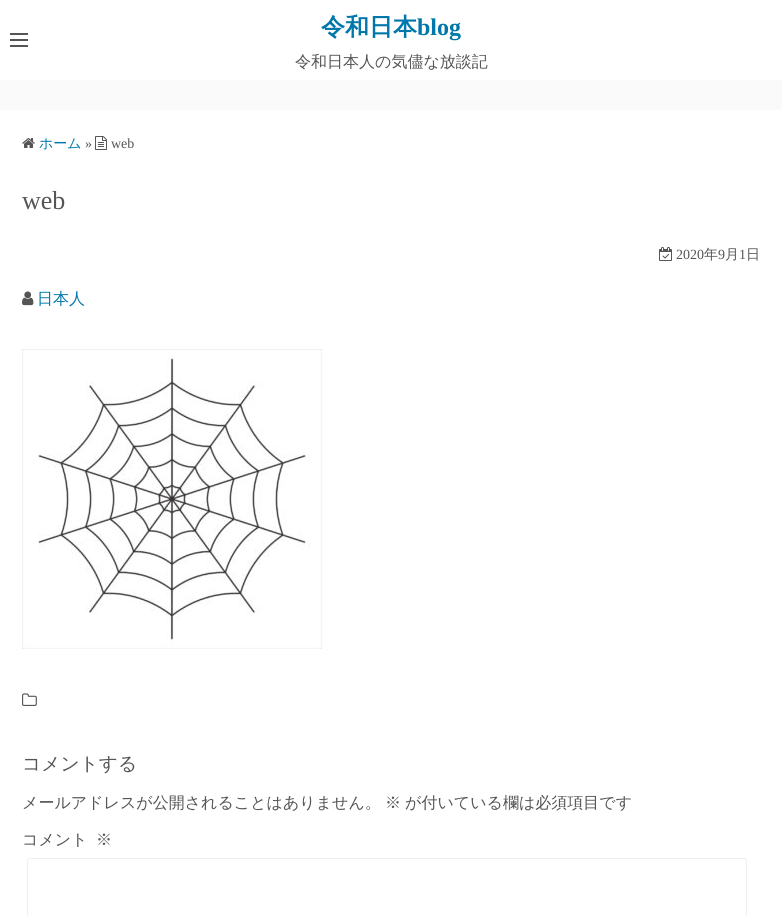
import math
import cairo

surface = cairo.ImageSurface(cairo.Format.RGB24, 782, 915)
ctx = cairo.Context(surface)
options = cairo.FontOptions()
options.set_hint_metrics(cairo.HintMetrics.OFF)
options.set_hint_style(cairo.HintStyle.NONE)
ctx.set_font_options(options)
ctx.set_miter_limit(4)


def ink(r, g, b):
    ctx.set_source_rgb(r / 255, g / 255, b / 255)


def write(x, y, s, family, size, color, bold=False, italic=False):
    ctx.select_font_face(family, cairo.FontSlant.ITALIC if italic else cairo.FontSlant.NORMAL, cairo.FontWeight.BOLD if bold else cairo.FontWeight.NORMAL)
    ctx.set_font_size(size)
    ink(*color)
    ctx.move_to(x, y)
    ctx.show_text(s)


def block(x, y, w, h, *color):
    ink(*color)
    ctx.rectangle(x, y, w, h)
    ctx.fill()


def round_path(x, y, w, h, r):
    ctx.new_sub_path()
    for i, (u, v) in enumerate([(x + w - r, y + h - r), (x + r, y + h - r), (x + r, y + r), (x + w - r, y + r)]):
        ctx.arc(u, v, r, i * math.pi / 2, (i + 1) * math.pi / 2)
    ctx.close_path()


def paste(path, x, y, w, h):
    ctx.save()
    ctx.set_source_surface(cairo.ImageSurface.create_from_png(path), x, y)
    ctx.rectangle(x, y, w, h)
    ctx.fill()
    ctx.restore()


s1 = dict(family="WenQuanYi Zen Hei", size=24, color=(0, 119, 170), bold=True)
s2 = dict(family="Liberation Serif", size=24, color=(0, 119, 170), bold=True)
s3 = dict(family="WenQuanYi Zen Hei Medium", size=16, color=(85, 85, 85))
s4 = dict(family="WenQuanYi Zen Hei Medium", size=14, color=(0, 119, 170))
s5 = dict(family="Liberation Serif", size=14, color=(85, 85, 85))
s6 = dict(family="Liberation Serif", size=26, color=(85, 85, 85))
s7 = dict(family="WenQuanYi Zen Hei Medium", size=14, color=(85, 85, 85))
s8 = dict(family="WenQuanYi Zen Hei Medium", size=16, color=(0, 119, 170))
s9 = dict(family="WenQuanYi Zen Hei Medium", size=18.75, color=(85, 85, 85))

ink(250, 250, 250)
ctx.paint()
block(0, 0, 782, 80, 255, 255, 255)
block(10, 39, 18, 2, 85, 85, 85)
block(10, 33, 18, 2, 85, 85, 85)
block(10, 45, 18, 2, 85, 85, 85)
write(321, 35, "令和日本", **s1)
write(417, 35, "blog", **s2)
write(295, 67, "令和日本人の気儘な放談記", **s3)
block(0, 110, 782, 805, 255, 255, 255)
paste("pic1.png", 22, 138, 13, 10)
write(39, 148, "ホーム", **s4)
write(85, 148, "»", **s5)
paste("pic2.png", 95, 136, 12, 14)
write(111, 148, "web", **s5)
write(22, 209, "web", **s6)
paste("pic3.png", 659, 247, 13, 14)
write(676, 259, "2020", **s5)
write(704, 259, "年", **s7)
write(718, 259, "9", **s5)
write(725, 259, "月", **s7)
write(739, 259, "1", **s5)
write(746, 259, "日", **s7)
paste("pic4.png", 22, 291, 12, 15)
write(37, 304, "日本人", **s8)
paste("pic5.png", 22, 349, 300, 300)
paste("pic6.png", 22, 693, 15, 13)
write(22, 770, "コメントする", **s9)
write(22, 808, "メールアドレスが公開されることはありません。", **s3)
write(385, 808, "※", **s3)
write(405, 808, "が付いている欄は必須項目です", **s3)
write(22, 845, "コメント", **s3)
write(96, 845, "※", **s3)
round_path(27.5, 858.5, 719, 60, 2.5)
ink(238, 238, 238)
ctx.set_line_width(1)
ctx.stroke()
surface.write_to_png("screenshot.png")
